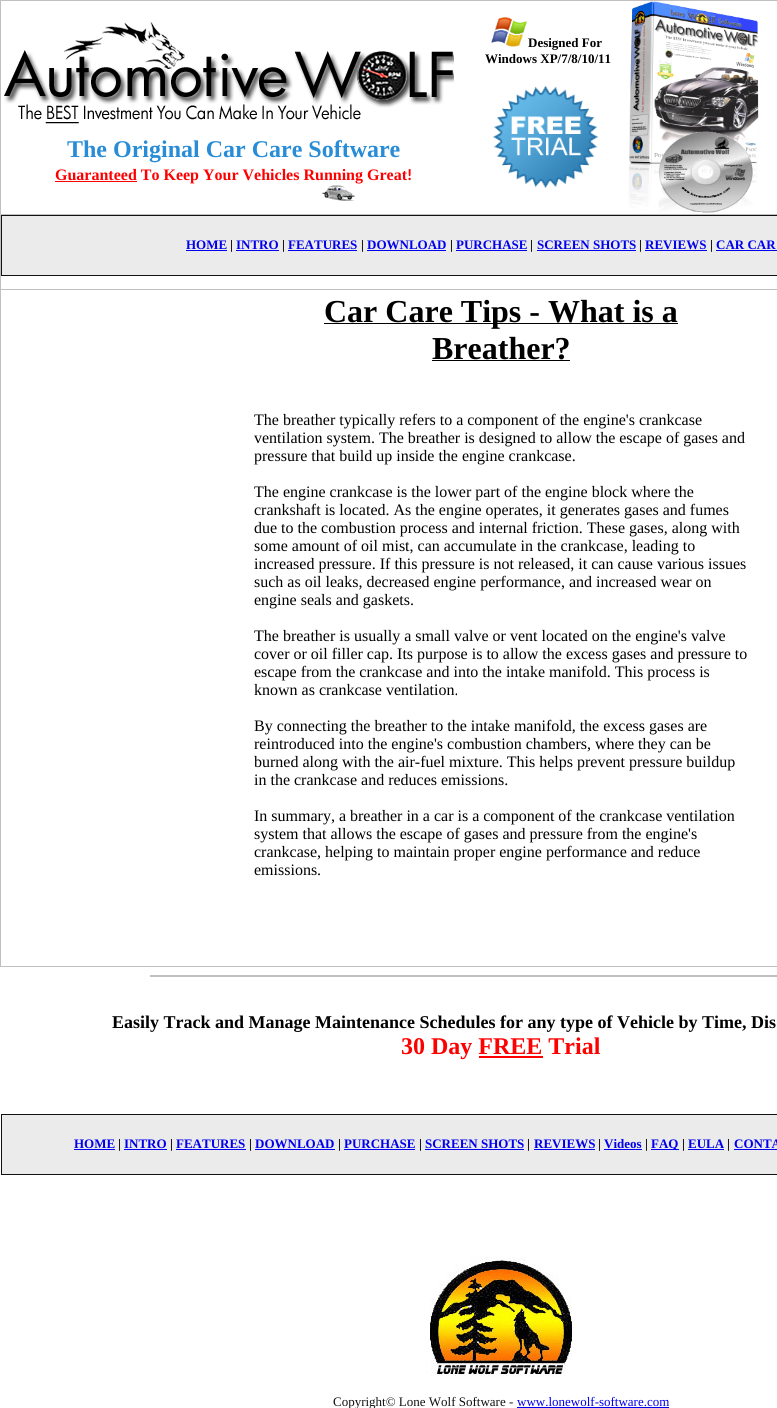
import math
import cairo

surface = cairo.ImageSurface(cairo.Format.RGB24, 777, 1408)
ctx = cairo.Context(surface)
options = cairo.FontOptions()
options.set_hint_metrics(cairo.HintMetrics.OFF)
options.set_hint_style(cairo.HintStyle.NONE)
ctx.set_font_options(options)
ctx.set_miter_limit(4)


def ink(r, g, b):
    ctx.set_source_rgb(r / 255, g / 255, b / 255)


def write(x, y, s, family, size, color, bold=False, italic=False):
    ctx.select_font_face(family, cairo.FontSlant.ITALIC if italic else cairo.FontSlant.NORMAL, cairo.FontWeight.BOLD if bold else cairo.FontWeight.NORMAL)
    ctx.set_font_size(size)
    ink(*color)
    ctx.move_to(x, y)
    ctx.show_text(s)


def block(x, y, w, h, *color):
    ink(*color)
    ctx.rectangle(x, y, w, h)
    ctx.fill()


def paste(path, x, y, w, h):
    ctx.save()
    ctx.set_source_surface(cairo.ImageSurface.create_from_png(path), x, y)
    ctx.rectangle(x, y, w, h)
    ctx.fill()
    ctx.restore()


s1 = dict(family="Liberation Serif", size=13, color=(0, 0, 0), bold=True)
s2 = dict(family="Liberation Serif", size=24, color=(41, 140, 214), bold=True)
s3 = dict(family="Liberation Serif", size=16, color=(255, 0, 0), bold=True)
s4 = dict(family="Carlito", size=16, color=(255, 0, 0), bold=True)
s5 = dict(family="Liberation Serif", size=13, color=(0, 0, 238), bold=True)
s6 = dict(family="Liberation Serif", size=32, color=(0, 0, 0), bold=True)
s7 = dict(family="Liberation Serif", size=16, color=(0, 0, 0))
s8 = dict(family="Liberation Serif", size=18, color=(0, 0, 0), bold=True)
s9 = dict(family="Liberation Serif", size=24, color=(255, 0, 0), bold=True)
s10 = dict(family="Liberation Serif", size=13, color=(17, 17, 17))
s11 = dict(family="Liberation Serif", size=13, color=(0, 0, 238))

ink(255, 255, 255)
ctx.paint()
block(0, 0, 777, 1, 192, 192, 192)
block(0, 214, 777, 1, 192, 192, 192)
block(0, 289, 777, 1, 192, 192, 192)
block(0, 966, 777, 1, 192, 192, 192)
block(0, 289, 1, 678, 192, 192, 192)
block(0, 214, 1, 76, 192, 192, 192)
block(0, 0, 1, 215, 192, 192, 192)
paste("pic1.png", 491, 17, 36, 30)
write(528, 47, "Designed For", **s1)
write(485, 63, "Windows XP/7/8/10/11", **s1)
paste("pic2.png", 492, 85, 107, 104)
paste("pic3.png", 628, 1, 131, 212)
paste("pic4.png", 4, 22, 450, 102)
write(67, 157, "The Original Car Care Software", **s2)
block(55, 181, 82, 1, 255, 0, 0)
write(55, 180, "Guaranteed To Keep Your Vehicles Running Great", **s3)
write(407, 180, "!", **s4)
paste("pic5.png", 322, 185, 33, 16)
block(1, 215, 776, 1, 17, 17, 17)
block(1, 275, 776, 1, 17, 17, 17)
block(1, 215, 1, 61, 17, 17, 17)
block(2, 216, 775, 59, 235, 235, 235)
write(186, 249, "HOME", **s5)
block(186, 250, 41, 1, 0, 0, 238)
write(230, 249, "|", **s1)
write(236, 249, "INTRO", **s5)
block(236, 250, 43, 1, 0, 0, 238)
write(282, 249, "|", **s1)
write(288, 249, "FEATURES", **s5)
block(288, 250, 69, 1, 0, 0, 238)
write(361, 249, "|", **s1)
write(367, 249, "DOWNLOAD", **s5)
block(367, 250, 79, 1, 0, 0, 238)
write(450, 249, "|", **s1)
write(456, 249, "PURCHASE", **s5)
block(456, 250, 71, 1, 0, 0, 238)
write(530, 249, "|", **s1)
write(537, 249, "SCREEN SHOTS", **s5)
block(537, 250, 99, 1, 0, 0, 238)
write(639, 249, "|", **s1)
write(645, 249, "REVIEWS", **s5)
block(645, 250, 62, 1, 0, 0, 238)
write(710, 249, "|", **s1)
write(716, 249, "CAR CAR", **s5)
block(716, 250, 61, 1, 0, 0, 238)
block(324, 323, 354, 1, 0, 0, 0)
write(324, 322, "Car Care Tips - What is a", **s6)
write(432, 359, "Breather?", **s6)
block(432, 360, 138, 1, 0, 0, 0)
write(254, 425, "The breather typically refers to a component of the engine's crankcase", **s7)
write(254, 443, "ventilation system. The breather is designed to allow the escape of gases and", **s7)
write(254, 461, "pressure that build up inside the engine crankcase.", **s7)
write(254, 497, "The engine crankcase is the lower part of the engine block where the", **s7)
write(254, 515, "crankshaft is located. As the engine operates, it generates gases and fumes", **s7)
write(254, 533, "due to the combustion process and internal friction. These gases, along with", **s7)
write(254, 551, "some amount of oil mist, can accumulate in the crankcase, leading to", **s7)
write(254, 569, "increased pressure. If this pressure is not released, it can cause various issues", **s7)
write(254, 587, "such as oil leaks, decreased engine performance, and increased wear on", **s7)
write(254, 605, "engine seals and gaskets.", **s7)
write(254, 641, "The breather is usually a small valve or vent located on the engine's valve", **s7)
write(254, 659, "cover or oil filler cap. Its purpose is to allow the excess gases and pressure to", **s7)
write(254, 677, "escape from the crankcase and into the intake manifold. This process is", **s7)
write(254, 695, "known as crankcase ventilation.", **s7)
write(254, 731, "By connecting the breather to the intake manifold, the excess gases are", **s7)
write(254, 749, "reintroduced into the engine's combustion chambers, where they can be", **s7)
write(254, 767, "burned along with the air-fuel mixture. This helps prevent pressure buildup", **s7)
write(254, 785, "in the crankcase and reduces emissions.", **s7)
write(254, 821, "In summary, a breather in a car is a component of the crankcase ventilation", **s7)
write(254, 839, "system that allows the escape of gases and pressure from the engine's", **s7)
write(254, 857, "crankcase, helping to maintain proper engine performance and reduce", **s7)
write(254, 875, "emissions.", **s7)
block(150, 975, 627, 2, 192, 192, 192)
write(112, 1028, "Easily Track and Manage Maintenance Schedules for any type of Vehicle by Time, Dis", **s8)
write(401, 1054, "30 Day FREE Trial", **s9)
block(479, 1056, 64, 2, 255, 0, 0)
block(1, 1114, 776, 1, 17, 17, 17)
block(1, 1174, 776, 1, 17, 17, 17)
block(1, 1114, 1, 61, 17, 17, 17)
block(2, 1115, 775, 59, 235, 235, 235)
write(74, 1148, "HOME", **s5)
block(74, 1149, 41, 1, 0, 0, 238)
write(118, 1148, "|", **s1)
write(124, 1148, "INTRO", **s5)
block(124, 1149, 43, 1, 0, 0, 238)
write(170, 1148, "|", **s1)
write(176, 1148, "FEATURES", **s5)
block(176, 1149, 70, 1, 0, 0, 238)
write(249, 1148, "|", **s1)
write(255, 1148, "DOWNLOAD", **s5)
block(255, 1149, 80, 1, 0, 0, 238)
write(338, 1148, "|", **s1)
write(344, 1148, "PURCHASE", **s5)
block(344, 1149, 71, 1, 0, 0, 238)
write(419, 1148, "|", **s1)
write(425, 1148, "SCREEN SHOTS", **s5)
block(425, 1149, 99, 1, 0, 0, 238)
write(527, 1148, "|", **s1)
write(534, 1148, "REVIEWS", **s5)
block(534, 1149, 61, 1, 0, 0, 238)
write(598, 1148, "|", **s1)
write(604, 1148, "Videos", **s5)
block(604, 1149, 38, 1, 0, 0, 238)
write(645, 1148, "|", **s1)
block(651, 1149, 28, 1, 0, 0, 238)
write(651, 1148, "FAQ", **s5)
write(682, 1148, "|", **s1)
write(688, 1148, "EULA", **s5)
block(688, 1149, 36, 1, 0, 0, 238)
write(727, 1148, "|", **s1)
write(734, 1148, "CONTA", **s5)
block(734, 1149, 43, 1, 0, 0, 238)
paste("pic6.png", 430, 1257, 142, 120)
write(333, 1406, "Copyright© Lone Wolf Software -", **s10)
write(517, 1406, "www.lonewolf-software.com", **s11)
block(517, 1407, 152, 1, 0, 0, 238)
surface.write_to_png("screenshot.png")
